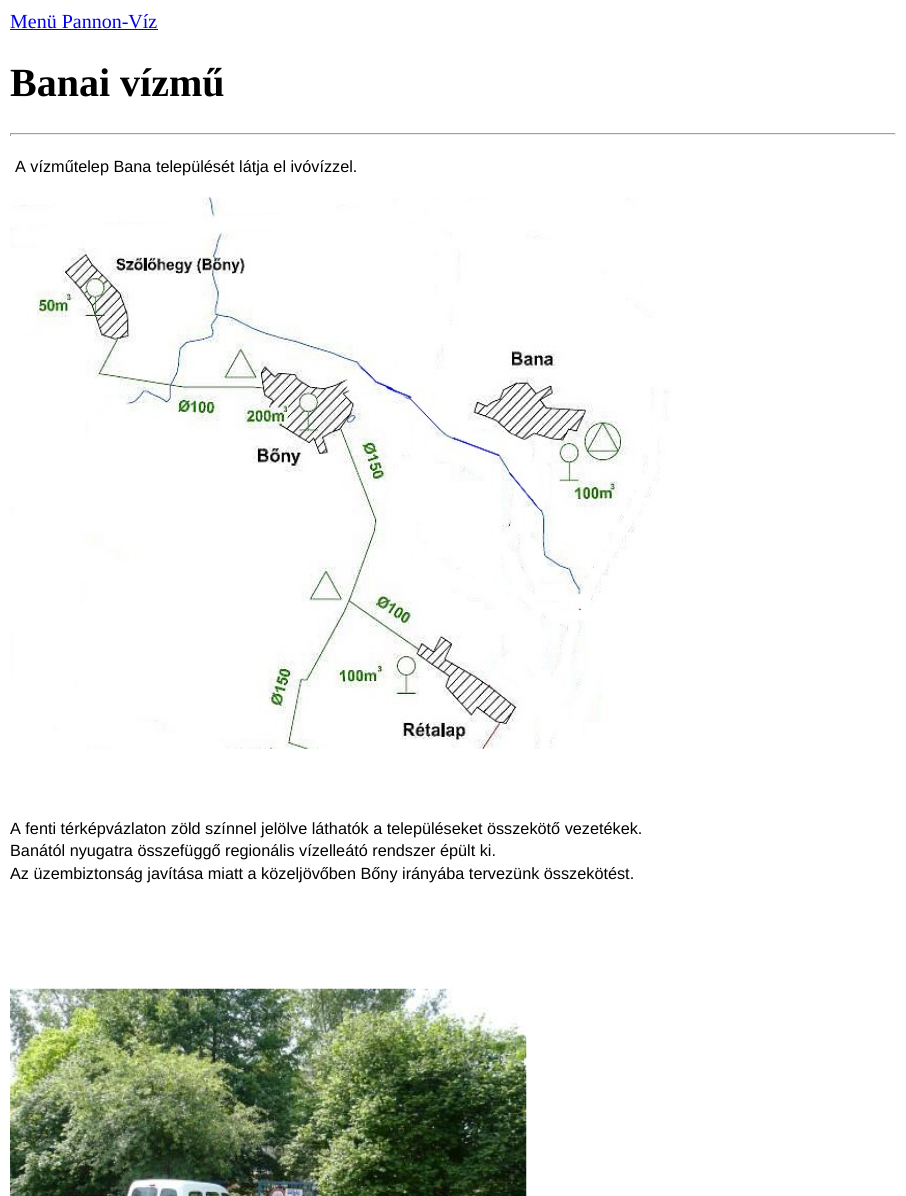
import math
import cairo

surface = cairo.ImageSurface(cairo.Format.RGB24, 906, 1196)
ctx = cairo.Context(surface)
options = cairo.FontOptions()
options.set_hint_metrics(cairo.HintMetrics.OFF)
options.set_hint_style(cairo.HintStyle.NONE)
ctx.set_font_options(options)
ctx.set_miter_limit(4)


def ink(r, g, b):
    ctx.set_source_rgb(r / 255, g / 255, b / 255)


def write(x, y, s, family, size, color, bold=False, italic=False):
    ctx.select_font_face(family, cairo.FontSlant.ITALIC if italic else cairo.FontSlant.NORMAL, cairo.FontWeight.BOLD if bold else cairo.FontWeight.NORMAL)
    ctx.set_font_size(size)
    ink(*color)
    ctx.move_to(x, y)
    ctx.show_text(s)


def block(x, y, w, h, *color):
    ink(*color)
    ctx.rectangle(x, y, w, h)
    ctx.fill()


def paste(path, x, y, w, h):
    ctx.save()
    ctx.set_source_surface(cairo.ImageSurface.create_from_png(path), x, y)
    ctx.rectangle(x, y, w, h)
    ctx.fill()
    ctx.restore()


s1 = dict(family="Liberation Serif", size=20, color=(0, 0, 238))
s2 = dict(family="Liberation Serif", size=40, color=(0, 0, 0), bold=True)
s3 = dict(family="Liberation Sans", size=16.25, color=(0, 0, 0))

ink(255, 255, 255)
ctx.paint()
write(10, 28, "Menü Pannon-Víz", **s1)
block(10, 29, 148, 1, 0, 0, 238)
write(10, 96, "Banai vízmű", **s2)
block(10, 133, 886, 1, 159, 159, 159)
block(895, 133, 1, 3, 238, 238, 238)
block(10, 134, 886, 1, 238, 238, 238)
block(10, 133, 1, 3, 159, 159, 159)
write(15, 172, "A vízműtelep Bana települését látja el ivóvízzel.", **s3)
paste("pic1.png", 10, 197, 661, 552)
write(10, 834, "A fenti térképvázlaton zöld színnel jelölve láthatók a településeket összekötő vezetékek.", **s3)
write(10, 856, "Banától nyugatra összefüggő regionális vízelleátó rendszer épült ki.", **s3)
write(10, 879, "Az üzembiztonság javítása miatt a közeljövőben Bőny irányába tervezünk összekötést.", **s3)
paste("pic2.png", 10, 988, 517, 208)
surface.write_to_png("screenshot.png")
